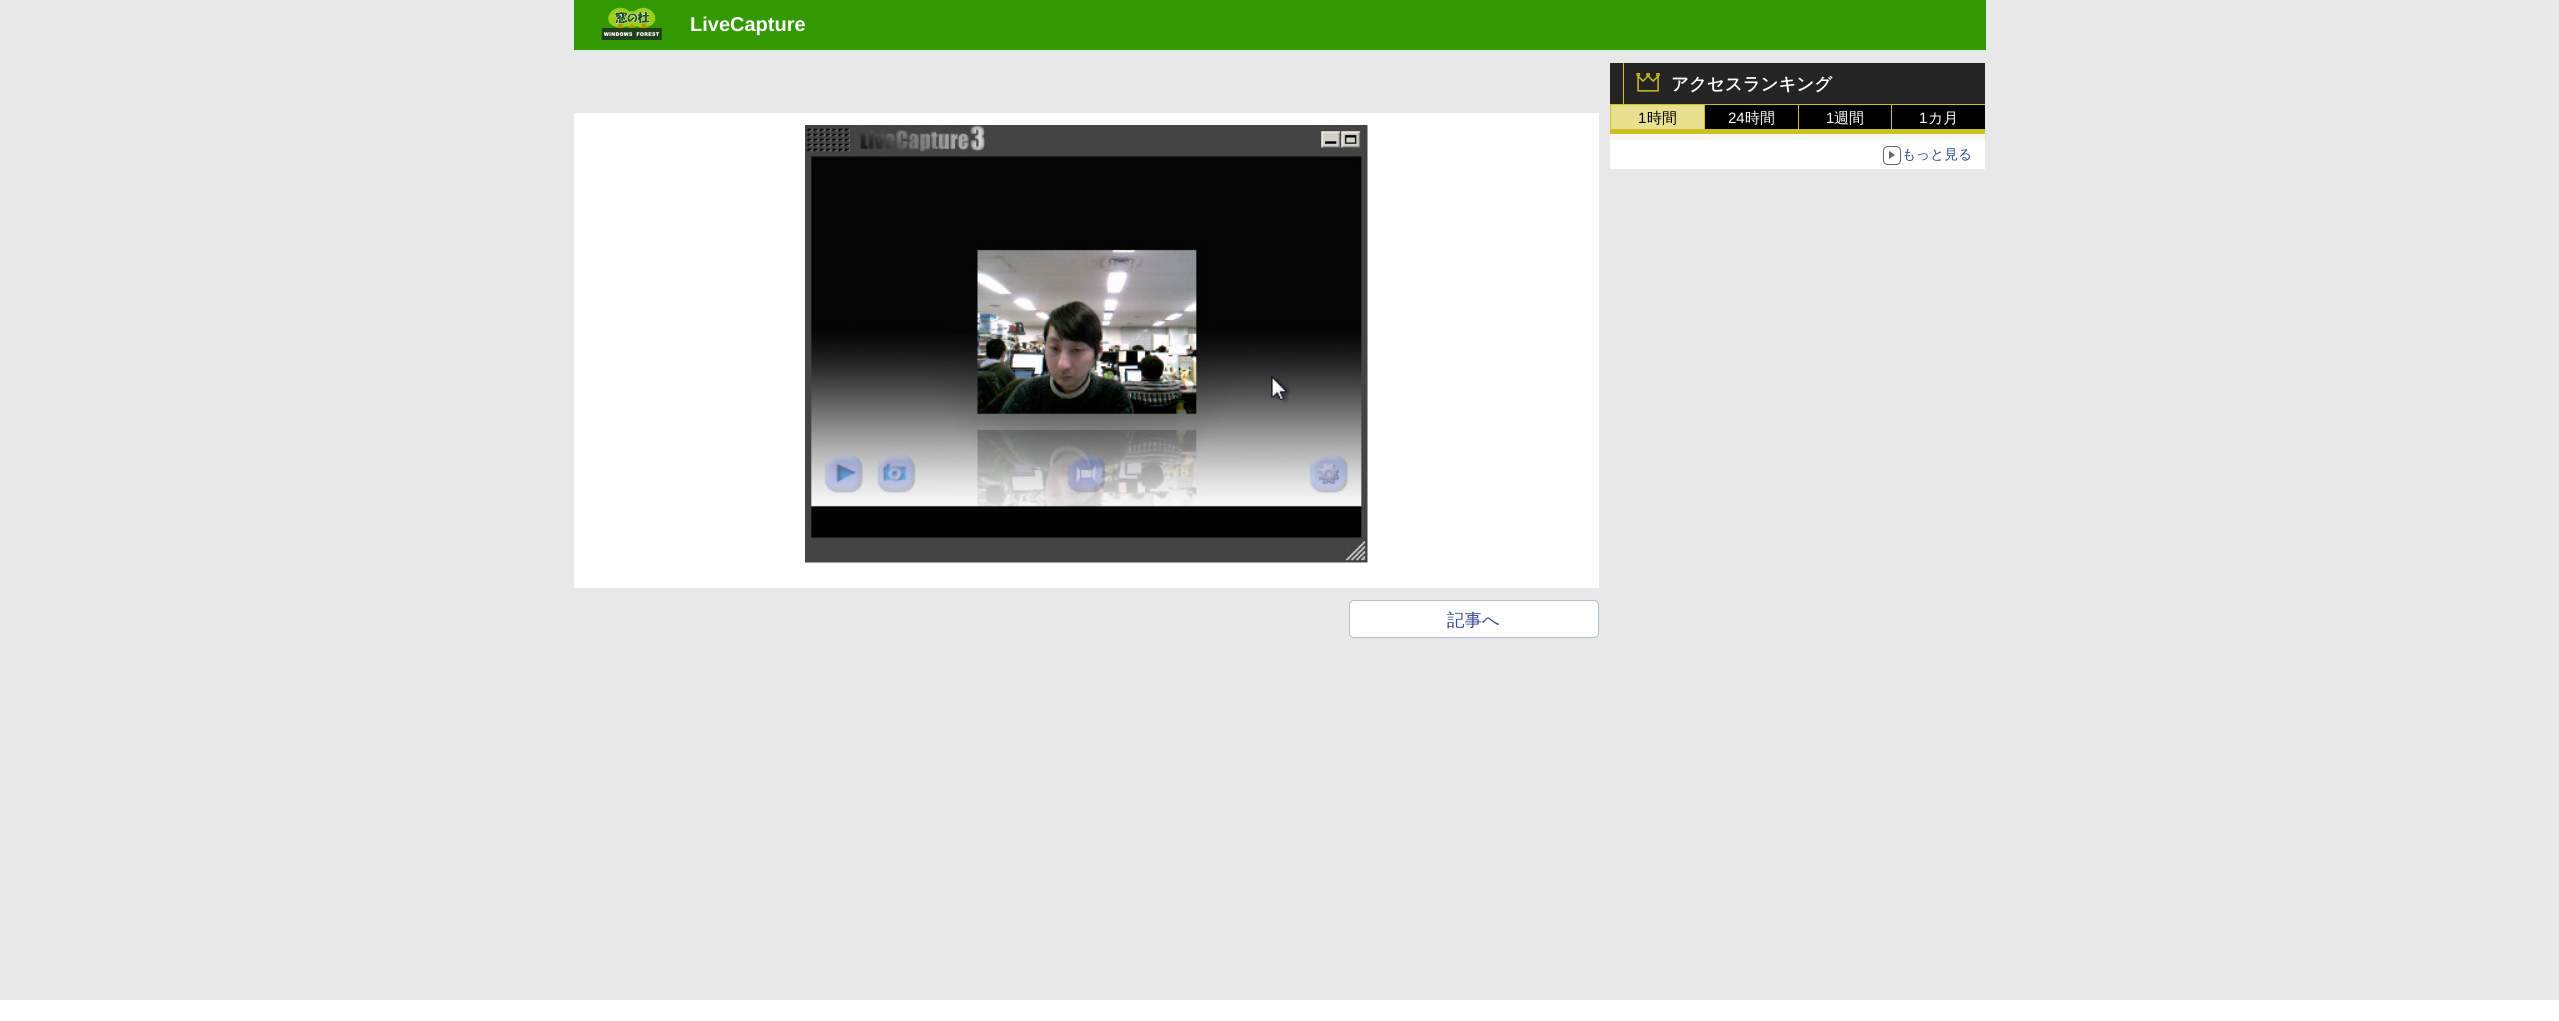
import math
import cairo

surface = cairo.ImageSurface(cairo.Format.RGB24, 2559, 1021)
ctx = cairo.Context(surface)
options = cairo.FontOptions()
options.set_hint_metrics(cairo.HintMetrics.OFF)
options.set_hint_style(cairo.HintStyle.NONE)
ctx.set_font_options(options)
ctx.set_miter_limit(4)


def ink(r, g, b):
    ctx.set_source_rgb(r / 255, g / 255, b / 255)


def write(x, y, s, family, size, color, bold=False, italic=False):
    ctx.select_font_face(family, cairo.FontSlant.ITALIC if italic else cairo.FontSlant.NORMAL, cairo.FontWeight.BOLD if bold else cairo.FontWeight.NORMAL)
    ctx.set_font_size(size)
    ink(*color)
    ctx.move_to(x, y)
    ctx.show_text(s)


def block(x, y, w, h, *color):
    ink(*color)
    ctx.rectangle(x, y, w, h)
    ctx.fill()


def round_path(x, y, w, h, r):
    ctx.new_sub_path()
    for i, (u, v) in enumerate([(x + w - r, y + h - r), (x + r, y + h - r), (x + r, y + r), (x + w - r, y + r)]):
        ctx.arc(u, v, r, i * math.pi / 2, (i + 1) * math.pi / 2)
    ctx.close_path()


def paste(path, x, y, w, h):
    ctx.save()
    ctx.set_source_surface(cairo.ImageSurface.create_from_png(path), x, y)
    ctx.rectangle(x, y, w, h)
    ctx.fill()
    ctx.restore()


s1 = dict(family="Liberation Sans", size=20, color=(255, 255, 255), bold=True)
s2 = dict(family="WenQuanYi Zen Hei", size=17.5, color=(255, 255, 255), bold=True)
s3 = dict(family="Liberation Sans", size=15, color=(0, 0, 0))
s4 = dict(family="WenQuanYi Zen Hei Medium", size=15, color=(0, 0, 0))
s5 = dict(family="Liberation Sans", size=15, color=(255, 255, 255))
s6 = dict(family="WenQuanYi Zen Hei Medium", size=15, color=(255, 255, 255))
s7 = dict(family="WenQuanYi Zen Hei Medium", size=13.75, color=(51, 73, 142))
s8 = dict(family="WenQuanYi Zen Hei Medium", size=17.5, color=(51, 73, 142))

ink(232, 232, 232)
ctx.paint()
block(574, 0, 1412, 50, 51, 153, 0)
paste("pic1.png", 601, 7, 61, 33)
write(690, 31, "LiveCapture", **s1)
block(1610, 63, 375, 41, 36, 36, 36)
block(1610, 104, 375, 1, 203, 193, 33)
block(1623, 63, 1, 42, 203, 193, 33)
paste("pic2.png", 1636, 73, 24, 19)
write(1671, 90, "アクセスランキング", **s2)
block(1611, 105, 93, 24, 231, 225, 143)
block(1610, 129, 375, 5, 203, 193, 33)
block(1610, 105, 1, 29, 203, 193, 33)
write(1638, 123, "1", **s3)
write(1647, 123, "時間", **s4)
block(1705, 105, 93, 24, 0, 0, 0)
block(1704, 105, 1, 29, 203, 193, 33)
write(1728, 123, "24", **s5)
write(1745, 123, "時間", **s6)
block(1799, 105, 92, 24, 0, 0, 0)
block(1798, 105, 1, 29, 203, 193, 33)
write(1826, 123, "1", **s5)
write(1834, 123, "週間", **s6)
block(1892, 105, 93, 24, 0, 0, 0)
block(1891, 105, 1, 29, 203, 193, 33)
write(1919, 123, "1", **s5)
write(1928, 123, "カ月", **s6)
block(1610, 134, 375, 6, 247, 247, 239)
block(1610, 140, 375, 29, 255, 255, 255)
round_path(1883.5, 146.5, 17, 18, 4.5)
ink(102, 102, 102)
ctx.set_line_width(1)
ctx.stroke()
write(1902, 159, "もっと見る", **s7)
ink(102, 102, 102)
ctx.new_path()
ctx.move_to(1889, 159)
ctx.line_to(1889, 151)
ctx.line_to(1895, 155)
ctx.close_path()
ctx.fill()
block(574, 113, 1025, 475, 255, 255, 255)
paste("pic3.png", 805, 125, 563, 438)
round_path(1349, 600, 250, 38, 5)
ctx.fill()
round_path(1349.5, 600.5, 249, 37, 4.5)
ctx.set_source_rgba(0.196, 0.286, 0.557, 0.36)
ctx.stroke()
write(1447, 626, "記事へ", **s8)
block(0, 1000, 2559, 21, 255, 255, 255)
surface.write_to_png("screenshot.png")
